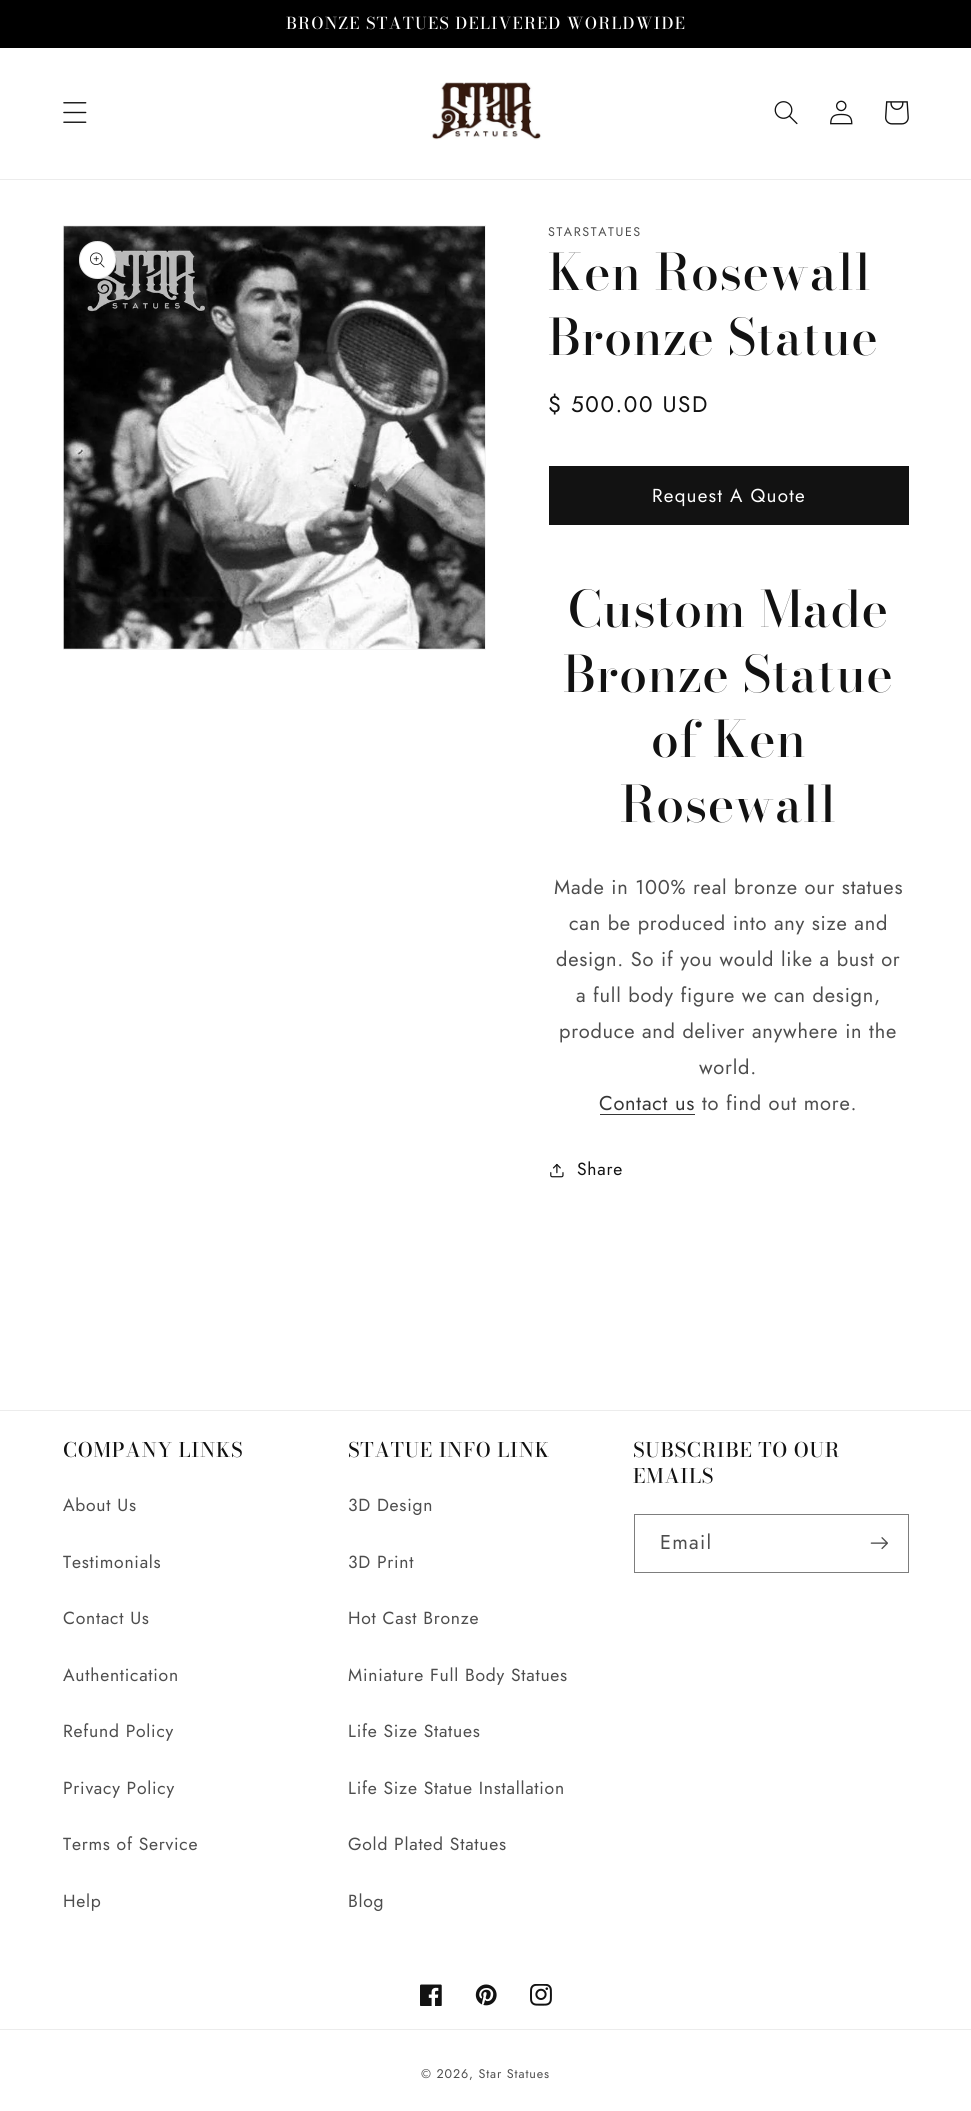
import math
import cairo

surface = cairo.ImageSurface(cairo.Format.RGB24, 971, 2111)
ctx = cairo.Context(surface)
options = cairo.FontOptions()
options.set_hint_metrics(cairo.HintMetrics.OFF)
options.set_hint_style(cairo.HintStyle.NONE)
ctx.set_font_options(options)
ctx.set_miter_limit(4)


def ink(r, g, b):
    ctx.set_source_rgb(r / 255, g / 255, b / 255)


def write_spaced(x, y, s, letter, word):
    ctx.move_to(x, y)
    for ch in s:
        ctx.show_text(ch)
        ctx.rel_move_to(letter + word * (ch == ' '), 0)


def block(x, y, w, h, *color):
    ink(*color)
    ctx.rectangle(x, y, w, h)
    ctx.fill()


def round_path(x, y, w, h, r):
    ctx.new_sub_path()
    for i, (u, v) in enumerate([(x + w - r, y + h - r), (x + r, y + h - r), (x + r, y + r), (x + w - r, y + r)]):
        ctx.arc(u, v, r, i * math.pi / 2, (i + 1) * math.pi / 2)
    ctx.close_path()


def paste(path, x, y, w, h):
    ctx.save()
    ctx.set_source_surface(cairo.ImageSurface.create_from_png(path), x, y)
    ctx.rectangle(x, y, w, h)
    ctx.fill()
    ctx.restore()


ink(255, 255, 255)
ctx.paint()
block(0, 0, 971, 48, 0, 0, 0)
ctx.select_font_face("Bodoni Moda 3 Medium")
ctx.set_font_size(16.25)
ink(255, 255, 255)
write_spaced(286, 29, "BRONZE STATUES DELIVERED WORLDWIDE", 1.25, 0)
block(0, 179, 971, 1, 236, 236, 236)
paste("pic1.png", 63, 102, 24, 21)
paste("pic2.png", 430, 82, 112, 58)
paste("pic3.png", 774, 101, 24, 24)
paste("pic4.png", 830, 100, 23, 25)
paste("pic5.png", 885, 101, 24, 24)
ctx.rectangle(63.5, 225.5, 422, 424)
ink(243, 243, 243)
ctx.set_line_width(1)
ctx.stroke()
paste("pic6.png", 63, 226, 422, 423)
ink(255, 255, 255)
round_path(79, 241, 37, 38, 18.5)
ctx.fill()
round_path(79.5, 241.5, 36, 37, 18)
ctx.set_source_rgba(0.071, 0.071, 0.071, 0.1)
ctx.stroke()
paste("pic7.png", 90, 252, 15, 16)
ctx.select_font_face("Jost")
ctx.set_font_size(12.5)
ink(77, 77, 77)
write_spaced(548, 236, "STARSTATUES", 1.6, 0)
ctx.select_font_face("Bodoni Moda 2 Medium")
ctx.set_font_size(50)
ink(18, 18, 18)
write_spaced(548, 290, "Ken Rosewall", 0.75, 0)
write_spaced(548, 355, "Bronze Statue", 0.75, 0)
ctx.select_font_face("Jost")
ctx.set_font_size(22.5)
write_spaced(548, 412, "$ 500.00 USD", 1.6, 0)
block(549, 466, 360, 59, 18, 18, 18)
ctx.set_font_size(18.75)
ink(255, 255, 255)
write_spaced(652, 502, "Request A Quote", 1.25, 0)
ctx.select_font_face("Bodoni Moda 2 Medium")
ctx.set_font_size(50)
ink(18, 18, 18)
write_spaced(568, 627, "Custom Made", 0.75, 0)
write_spaced(563, 692, "Bronze Statue", 0.75, 0)
write_spaced(651, 757, "of Ken", 0.75, 0)
write_spaced(620, 822, "Rosewall", 0.75, 0)
ctx.select_font_face("Jost")
ctx.set_font_size(20)
ink(77, 77, 77)
write_spaced(554, 894, "Made in 100% real bronze our statues", 0.75, 0)
write_spaced(569, 930, "can be produced into any size and", 0.75, 0)
write_spaced(556, 966, "design. So if you would like a bust or", 0.75, 0)
write_spaced(576, 1002, "a full body figure we can design,", 0.75, 0)
write_spaced(559, 1038, "produce and deliver anywhere in the", 0.75, 0)
write_spaced(699, 1074, "world.", 0.75, 0)
ink(54, 54, 54)
write_spaced(599, 1110, "Contact us", 0.75, 0)
block(600, 1114, 95, 1, 54, 54, 54)
ink(77, 77, 77)
write_spaced(702, 1110, "to find out more.", 0.75, 0)
paste("pic8.png", 550, 1163, 14, 15)
ctx.set_font_size(17.5)
ink(18, 18, 18)
write_spaced(577, 1175, "Share", 0.75, 0)
block(0, 1410, 971, 1, 236, 236, 236)
ctx.select_font_face("Bodoni Moda Medium")
ctx.set_font_size(20)
ink(18, 18, 18)
write_spaced(63, 1457, "COMPANY LINKS", 0.75, 0)
ctx.select_font_face("Jost")
ctx.set_font_size(17.5)
ink(77, 77, 77)
write_spaced(63, 1511, "About Us", 0.75, 0)
write_spaced(63, 1568, "Testimonials", 0.75, 0)
write_spaced(63, 1624, "Contact Us", 0.75, 0)
write_spaced(63, 1681, "Authentication", 0.75, 0)
write_spaced(63, 1737, "Refund Policy", 0.75, 0)
write_spaced(63, 1794, "Privacy Policy", 0.75, 0)
write_spaced(63, 1850, "Terms of Service", 0.75, 0)
write_spaced(63, 1907, "Help", 0.75, 0)
ctx.select_font_face("Bodoni Moda Medium")
ctx.set_font_size(20)
ink(18, 18, 18)
write_spaced(348, 1457, "STATUE INFO LINK", 0.75, 0)
ctx.select_font_face("Jost")
ctx.set_font_size(17.5)
ink(77, 77, 77)
write_spaced(348, 1511, "3D Design", 0.75, 0)
write_spaced(348, 1568, "3D Print", 0.75, 0)
write_spaced(348, 1624, "Hot Cast Bronze", 0.75, 0)
write_spaced(348, 1681, "Miniature Full Body Statues", 0.75, 0)
write_spaced(348, 1737, "Life Size Statues", 0.75, 0)
write_spaced(348, 1794, "Life Size Statue Installation", 0.75, 0)
write_spaced(348, 1850, "Gold Plated Statues", 0.75, 0)
write_spaced(348, 1907, "Blog", 0.75, 0)
ctx.select_font_face("Bodoni Moda Medium")
ctx.set_font_size(20)
ink(18, 18, 18)
write_spaced(633, 1457, "SUBSCRIBE TO OUR", 0.75, 0)
write_spaced(633, 1483, "EMAILS", 0.75, 0)
ctx.rectangle(634.5, 1514.5, 274, 58)
ink(125, 125, 125)
ctx.stroke()
ctx.select_font_face("Jost")
ink(77, 77, 77)
write_spaced(660, 1549, "Email", 1.25, 0)
paste("pic9.png", 870, 1537, 18, 13)
paste("pic10.png", 420, 1984, 22, 22)
paste("pic11.png", 475, 1984, 22, 22)
paste("pic12.png", 530, 1984, 22, 22)
block(0, 2029, 971, 1, 236, 236, 236)
ctx.set_font_size(12.5)
ink(77, 77, 77)
write_spaced(421, 2078, "© 2026, Star Statues", 0.9, 0)
surface.write_to_png("screenshot.png")
